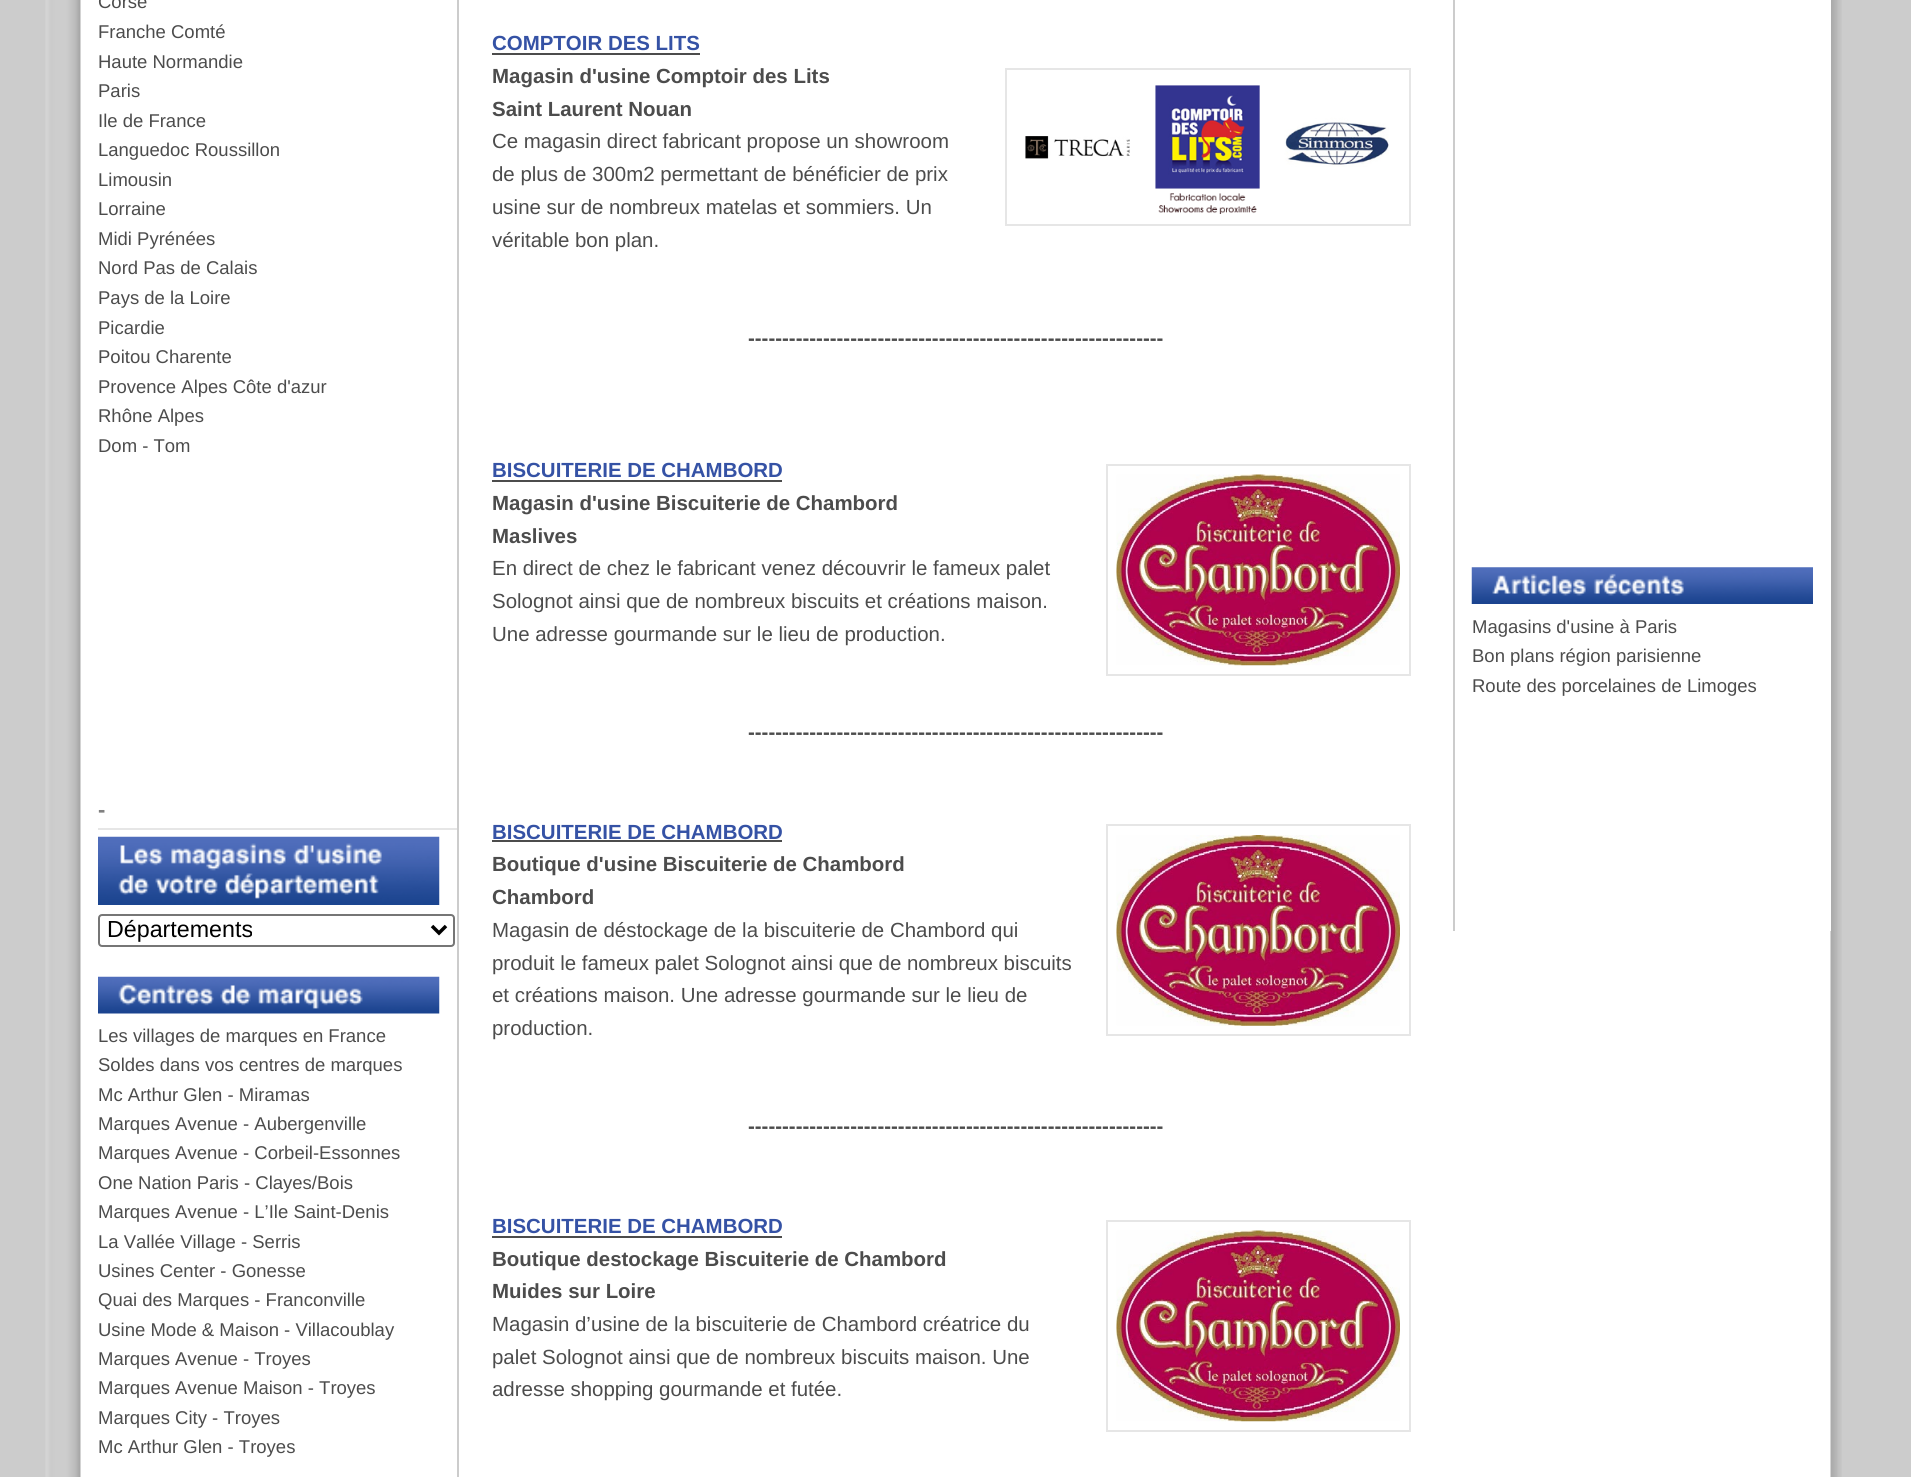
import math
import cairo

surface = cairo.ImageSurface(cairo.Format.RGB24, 1911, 1477)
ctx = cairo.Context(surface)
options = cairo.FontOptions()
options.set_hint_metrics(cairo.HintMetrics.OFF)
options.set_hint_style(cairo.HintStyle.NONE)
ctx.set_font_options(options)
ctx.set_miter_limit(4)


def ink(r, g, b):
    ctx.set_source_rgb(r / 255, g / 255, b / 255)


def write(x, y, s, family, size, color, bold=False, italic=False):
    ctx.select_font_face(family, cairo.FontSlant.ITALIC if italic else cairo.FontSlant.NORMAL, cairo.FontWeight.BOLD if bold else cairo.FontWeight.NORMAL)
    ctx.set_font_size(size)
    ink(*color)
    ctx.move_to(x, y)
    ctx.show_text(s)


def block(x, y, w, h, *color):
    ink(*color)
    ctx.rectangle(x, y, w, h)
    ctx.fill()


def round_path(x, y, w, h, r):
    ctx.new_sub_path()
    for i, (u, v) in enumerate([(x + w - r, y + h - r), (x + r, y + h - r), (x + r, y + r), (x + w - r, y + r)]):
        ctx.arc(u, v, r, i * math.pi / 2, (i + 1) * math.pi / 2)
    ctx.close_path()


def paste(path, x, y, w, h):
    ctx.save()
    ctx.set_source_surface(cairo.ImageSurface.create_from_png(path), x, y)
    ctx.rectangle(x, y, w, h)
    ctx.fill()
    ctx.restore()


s1 = dict(family="Liberation Sans", size=18.5, color=(76, 76, 76))
s2 = dict(family="Liberation Sans", size=22, color=(128, 128, 128), bold=True)
s3 = dict(family="Liberation Sans", size=23.25, color=(0, 0, 0))
s4 = dict(family="Liberation Sans", size=20.45, color=(53, 82, 165), bold=True)
s5 = dict(family="Liberation Sans", size=20.45, color=(76, 76, 76), bold=True)
s6 = dict(family="Liberation Sans", size=20.45, color=(76, 76, 76))

ink(204, 204, 204)
ctx.paint()
paste("pic1.png", 45, 0, 1797, 1477)
block(457, 0, 2, 1477, 204, 204, 204)
write(98, 8, "Corse", **s1)
write(98, 38, "Franche Comté", **s1)
write(98, 68, "Haute Normandie", **s1)
write(98, 97, "Paris", **s1)
write(98, 127, "Ile de France", **s1)
write(98, 156, "Languedoc Roussillon", **s1)
write(98, 186, "Limousin", **s1)
write(98, 215, "Lorraine", **s1)
write(98, 245, "Midi Pyrénées", **s1)
write(98, 274, "Nord Pas de Calais", **s1)
write(98, 304, "Pays de la Loire", **s1)
write(98, 334, "Picardie", **s1)
write(98, 363, "Poitou Charente", **s1)
write(98, 393, "Provence Alpes Côte d'azur", **s1)
write(98, 422, "Rhône Alpes", **s1)
write(98, 452, "Dom - Tom", **s1)
block(98, 828, 359, 2, 230, 230, 230)
write(98, 817, "-", **s2)
paste("pic2.png", 98, 836, 342, 69)
round_path(99, 915, 355, 31, 3)
ink(118, 118, 118)
ctx.stroke()
ctx.new_path()
ctx.move_to(432, 926)
ctx.line_to(439, 933)
ctx.line_to(446, 926)
ink(0, 0, 0)
ctx.set_line_width(3.5)
ctx.stroke()
write(107, 937, "Départements", **s3)
paste("pic3.png", 98, 976, 342, 38)
write(98, 1042, "Les villages de marques en France", **s1)
write(98, 1071, "Soldes dans vos centres de marques", **s1)
write(98, 1101, "Mc Arthur Glen - Miramas", **s1)
write(98, 1130, "Marques Avenue - Aubergenville", **s1)
write(98, 1159, "Marques Avenue - Corbeil-Essonnes", **s1)
write(98, 1189, "One Nation Paris - Clayes/Bois", **s1)
write(98, 1218, "Marques Avenue - L’Ile Saint-Denis", **s1)
write(98, 1248, "La Vallée Village - Serris", **s1)
write(98, 1277, "Usines Center - Gonesse", **s1)
write(98, 1306, "Quai des Marques - Franconville", **s1)
write(98, 1336, "Usine Mode & Maison - Villacoublay", **s1)
write(98, 1365, "Marques Avenue - Troyes", **s1)
write(98, 1394, "Marques Avenue Maison - Troyes", **s1)
write(98, 1424, "Marques City - Troyes", **s1)
write(98, 1453, "Mc Arthur Glen - Troyes", **s1)
write(492, 50, "COMPTOIR DES LITS", **s4)
block(492, 53, 208, 2, 76, 76, 76)
write(492, 83, "Magasin d'usine Comptoir des Lits", **s5)
ctx.rectangle(1006, 69, 404, 156)
ink(230, 230, 230)
ctx.set_line_width(2)
ctx.stroke()
paste("pic4.png", 1025, 85, 364, 129)
write(492, 116, "Saint Laurent Nouan", **s5)
write(492, 148, "Ce magasin direct fabricant propose un showroom", **s6)
write(492, 181, "de plus de 300m2 permettant de bénéficier de prix", **s6)
write(492, 214, "usine sur de nombreux matelas et sommiers. Un", **s6)
write(492, 247, "véritable bon plan.", **s6)
write(748, 345, "-------------------------------------------------------------", **s5)
write(492, 477, "BISCUITERIE DE CHAMBORD", **s4)
block(492, 480, 290, 2, 76, 76, 76)
ctx.rectangle(1107, 465, 303, 210)
ink(230, 230, 230)
ctx.stroke()
paste("pic5.png", 1116, 474, 284, 192)
write(492, 510, "Magasin d'usine Biscuiterie de Chambord", **s5)
write(492, 543, "Maslives", **s5)
write(492, 575, "En direct de chez le fabricant venez découvrir le fameux palet", **s6)
write(492, 608, "Solognot ainsi que de nombreux biscuits et créations maison.", **s6)
write(492, 641, "Une adresse gourmande sur le lieu de production.", **s6)
write(748, 739, "-------------------------------------------------------------", **s5)
write(492, 839, "BISCUITERIE DE CHAMBORD", **s4)
block(492, 840, 290, 2, 76, 76, 76)
ctx.rectangle(1107, 825, 303, 210)
ink(230, 230, 230)
ctx.stroke()
paste("pic6.png", 1116, 835, 284, 191)
write(492, 871, "Boutique d'usine Biscuiterie de Chambord", **s5)
write(492, 904, "Chambord", **s5)
write(492, 937, "Magasin de déstockage de la biscuiterie de Chambord qui", **s6)
write(492, 970, "produit le fameux palet Solognot ainsi que de nombreux biscuits", **s6)
write(492, 1002, "et créations maison. Une adresse gourmande sur le lieu de", **s6)
write(492, 1035, "production.", **s6)
write(748, 1133, "-------------------------------------------------------------", **s5)
write(492, 1233, "BISCUITERIE DE CHAMBORD", **s4)
block(492, 1236, 290, 2, 76, 76, 76)
ctx.rectangle(1107, 1221, 303, 210)
ink(230, 230, 230)
ctx.stroke()
paste("pic5.png", 1116, 1230, 284, 192)
write(492, 1266, "Boutique destockage Biscuiterie de Chambord", **s5)
write(492, 1298, "Muides sur Loire", **s5)
write(492, 1331, "Magasin d’usine de la biscuiterie de Chambord créatrice du", **s6)
write(492, 1364, "palet Solognot ainsi que de nombreux biscuits maison. Une", **s6)
write(492, 1396, "adresse shopping gourmande et futée.", **s6)
block(1830, 0, 1, 931, 255, 255, 255)
block(1453, 0, 2, 931, 204, 204, 204)
paste("pic7.png", 1471, 567, 342, 37)
write(1472, 633, "Magasins d'usine à Paris", **s1)
write(1472, 662, "Bon plans région parisienne", **s1)
write(1472, 692, "Route des porcelaines de Limoges", **s1)
surface.write_to_png("screenshot.png")
